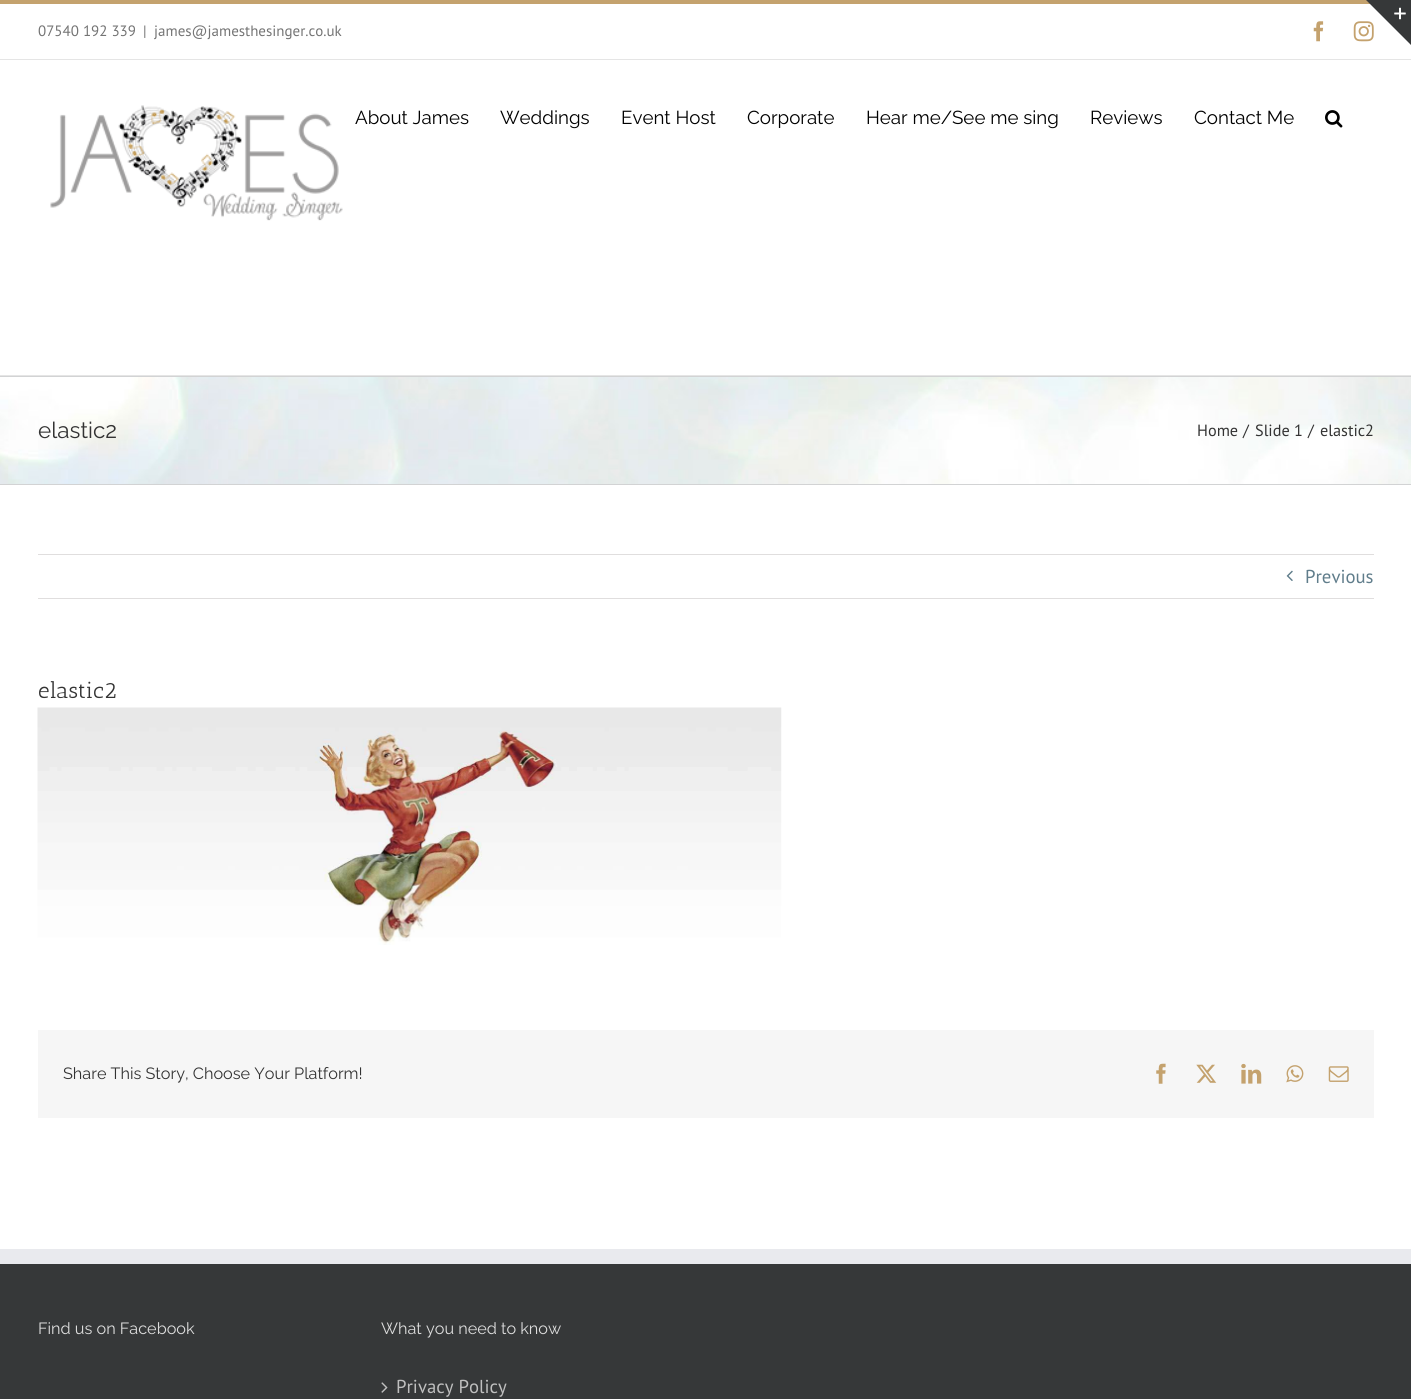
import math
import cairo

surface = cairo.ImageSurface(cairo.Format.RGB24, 1411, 1399)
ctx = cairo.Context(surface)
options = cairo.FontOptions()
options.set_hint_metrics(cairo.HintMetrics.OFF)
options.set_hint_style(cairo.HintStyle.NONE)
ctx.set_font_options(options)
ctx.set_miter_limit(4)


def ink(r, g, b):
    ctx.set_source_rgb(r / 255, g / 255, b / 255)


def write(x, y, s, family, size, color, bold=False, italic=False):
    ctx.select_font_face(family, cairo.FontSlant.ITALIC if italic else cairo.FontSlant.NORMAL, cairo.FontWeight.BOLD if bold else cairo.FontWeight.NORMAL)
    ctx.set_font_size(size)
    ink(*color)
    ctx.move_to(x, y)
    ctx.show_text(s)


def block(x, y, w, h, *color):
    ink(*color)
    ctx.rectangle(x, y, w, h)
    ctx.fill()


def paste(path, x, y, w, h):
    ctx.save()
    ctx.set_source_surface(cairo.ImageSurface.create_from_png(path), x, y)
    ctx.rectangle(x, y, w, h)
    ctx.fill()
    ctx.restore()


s1 = dict(family="PT Sans", size=15, color=(116, 116, 116))
s2 = dict(family="Raleway Thin", size=18.75, color=(0, 0, 0))
s3 = dict(family="Raleway Thin", size=22.5, color=(51, 51, 51))
s4 = dict(family="PT Sans", size=16.25, color=(51, 51, 51))
s5 = dict(family="PT Sans", size=18.75, color=(96, 125, 139))
s6 = dict(family="Antic Slab", size=22.5, color=(51, 51, 51))
s7 = dict(family="Raleway Thin", size=16.25, color=(51, 51, 51))
s8 = dict(family="Raleway Thin", size=16.25, color=(221, 221, 221))
s9 = dict(family="PT Sans", size=18.75, color=(191, 191, 191))

ink(255, 255, 255)
ctx.paint()
block(0, 0, 1370, 4, 196, 162, 110)
block(0, 59, 1411, 1, 229, 229, 229)
write(38, 36, "07540 192 339", **s1)
write(143, 36, "|", **s1)
write(154, 36, "james@jamesthesinger.co.uk", **s1)
paste("pic1.png", 1313, 21, 11, 21)
paste("pic2.png", 1353, 21, 21, 21)
block(0, 375, 1411, 1, 229, 229, 229)
paste("pic3.png", 50, 105, 293, 116)
write(355, 124, "About James", **s2)
write(500, 124, "Weddings", **s2)
write(621, 124, "Event Host", **s2)
write(747, 124, "Corporate", **s2)
write(866, 124, "Hear me/See me sing", **s2)
write(1090, 124, "Reviews", **s2)
write(1194, 124, "Contact Me", **s2)
paste("pic4.png", 1325, 110, 18, 18)
ink(54, 56, 57)
ctx.new_path()
ctx.move_to(1366, 0)
ctx.line_to(1411, 0)
ctx.line_to(1411, 45)
ctx.close_path()
ctx.fill()
paste("pic5.png", 1394, 7, 12, 13)
paste("pic6.png", 0, 377, 1411, 107)
block(0, 376, 1411, 1, 210, 211, 212)
block(0, 484, 1411, 1, 210, 211, 212)
write(38, 438, "elastic2", **s3)
write(1197, 436, "Home", **s4)
write(1243, 436, "/", **s4)
write(1255, 436, "Slide 1", **s4)
write(1308, 436, "/", **s4)
write(1320, 436, "elastic2", **s4)
block(38, 554, 1336, 1, 224, 222, 222)
block(38, 598, 1336, 1, 224, 222, 222)
paste("pic7.png", 1286, 570, 7, 11)
write(1305, 583, "Previous", **s5)
write(38, 698, "elastic2", **s6)
paste("pic8.png", 37, 707, 745, 238)
block(38, 1030, 1336, 88, 246, 246, 246)
write(63, 1079, "Share This Story, Choose Your Platform!", **s7)
paste("pic9.png", 1156, 1063, 10, 21)
paste("pic10.png", 1196, 1064, 21, 19)
paste("pic11.png", 1241, 1063, 21, 21)
paste("pic12.png", 1286, 1065, 18, 18)
paste("pic13.png", 1328, 1066, 21, 16)
block(0, 1264, 1411, 135, 54, 56, 57)
block(0, 1249, 1411, 15, 233, 234, 238)
write(38, 1334, "Find us on Facebook", **s8)
write(381, 1334, "What you need to know", **s8)
paste("pic14.png", 381, 1382, 7, 11)
write(396, 1393, "Privacy Policy", **s9)
surface.write_to_png("screenshot.png")
